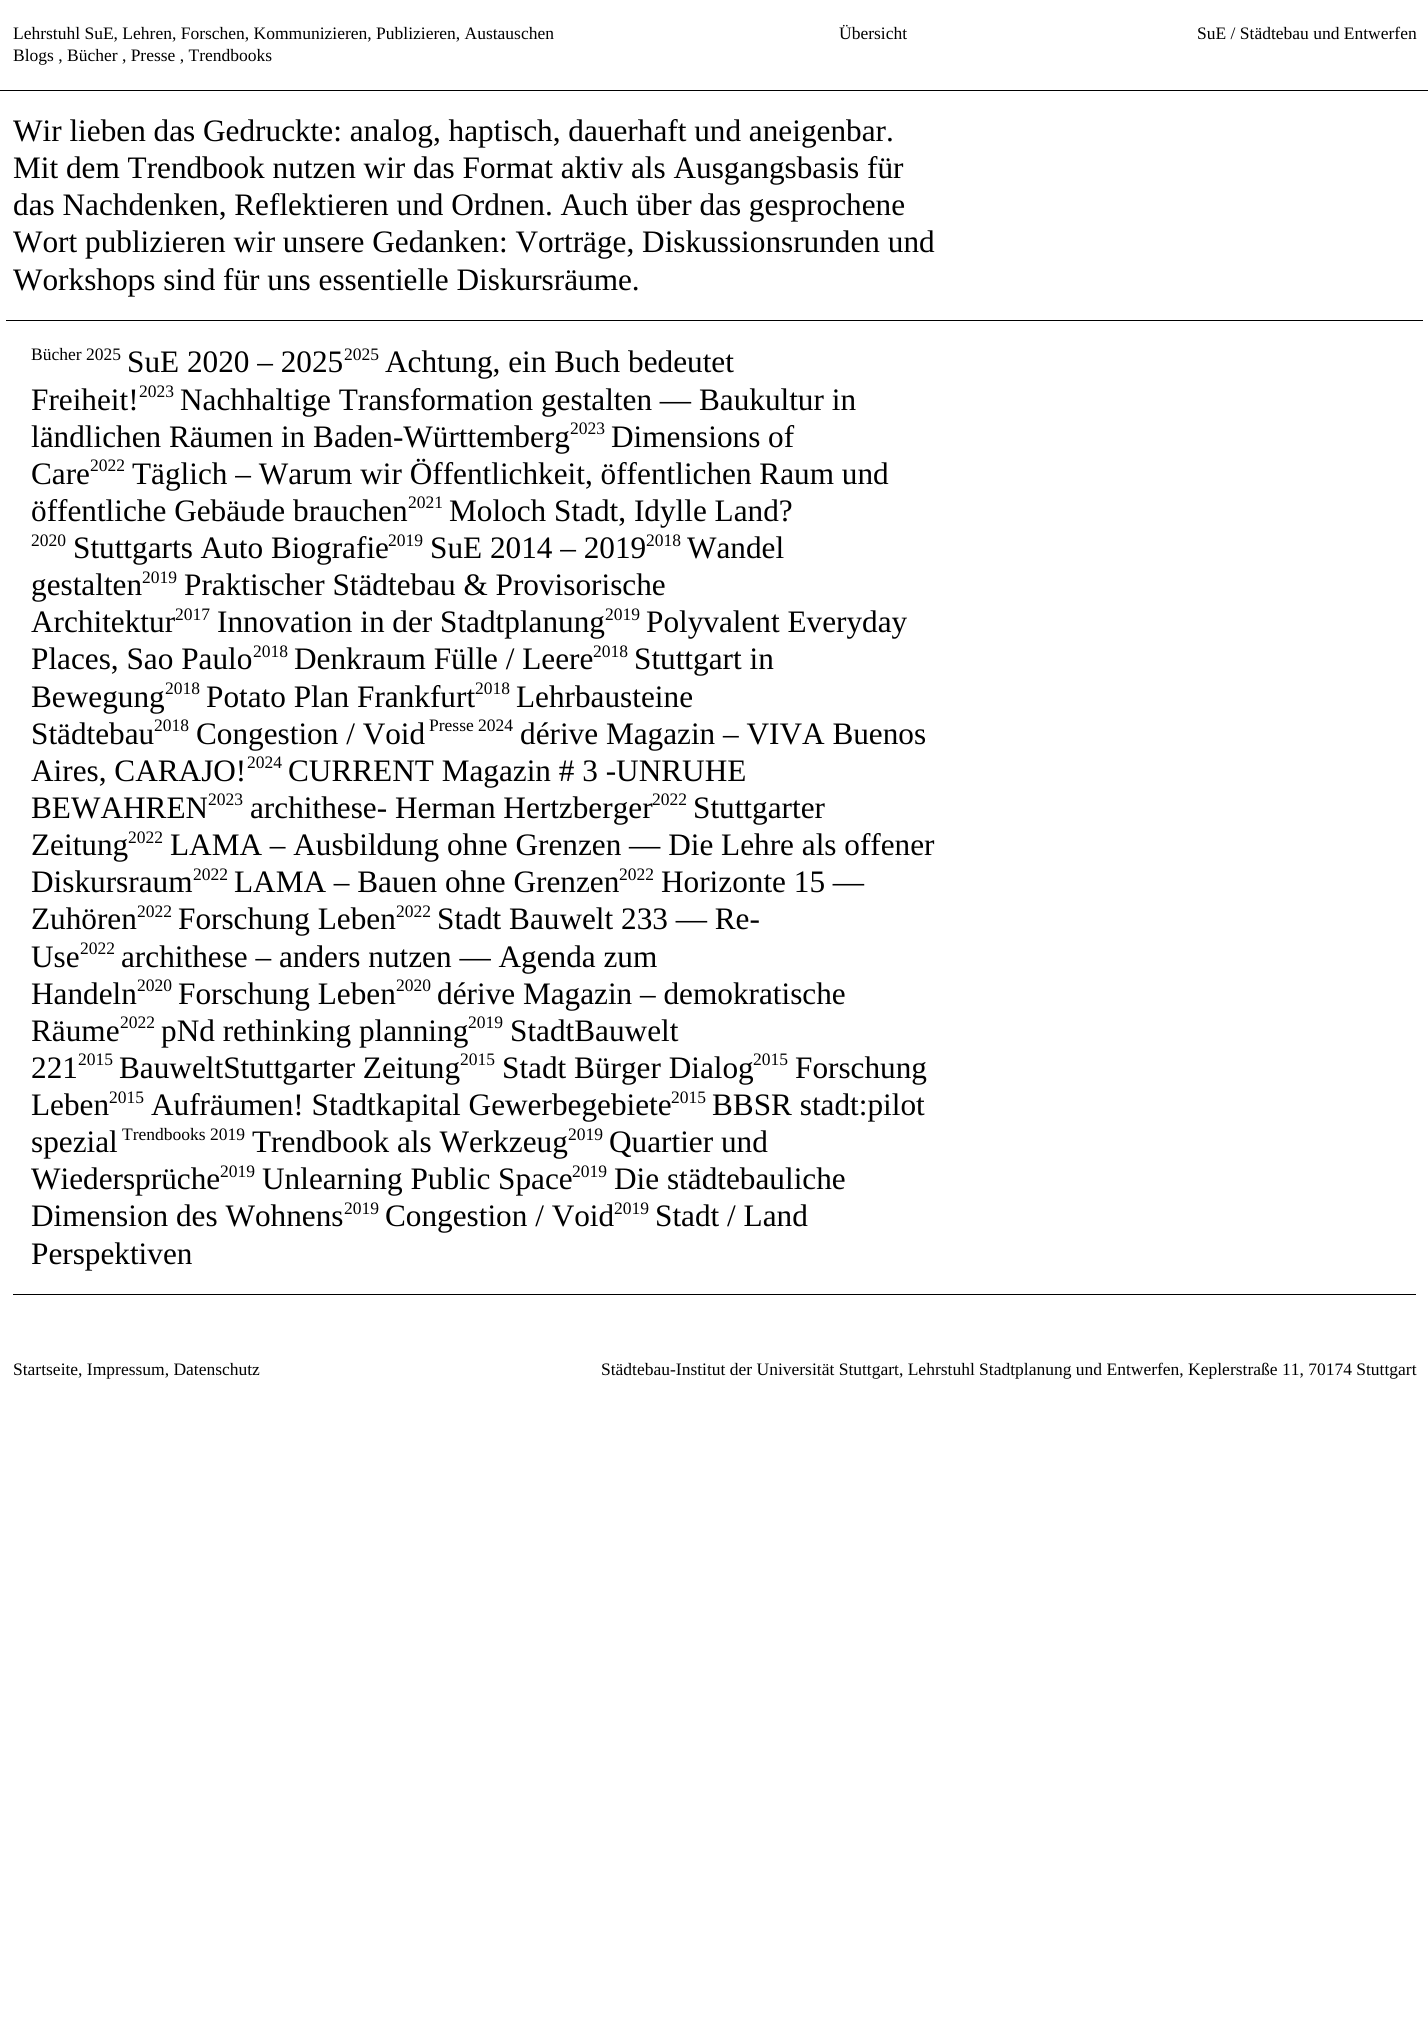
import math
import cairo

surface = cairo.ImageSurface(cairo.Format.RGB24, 1428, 2044)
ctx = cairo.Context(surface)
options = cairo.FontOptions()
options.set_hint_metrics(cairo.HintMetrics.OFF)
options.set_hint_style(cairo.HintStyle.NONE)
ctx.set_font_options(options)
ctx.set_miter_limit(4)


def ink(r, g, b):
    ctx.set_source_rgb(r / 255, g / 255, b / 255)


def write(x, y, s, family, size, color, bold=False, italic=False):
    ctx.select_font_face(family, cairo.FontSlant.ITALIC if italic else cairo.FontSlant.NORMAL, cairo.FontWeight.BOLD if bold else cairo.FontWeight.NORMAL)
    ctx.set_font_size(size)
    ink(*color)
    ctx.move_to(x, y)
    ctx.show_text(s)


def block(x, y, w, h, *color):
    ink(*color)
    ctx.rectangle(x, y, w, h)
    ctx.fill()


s1 = dict(family="Liberation Serif", size=17.5, color=(0, 0, 0))
s2 = dict(family="Liberation Serif", size=31.25, color=(0, 0, 0))

ink(255, 255, 255)
ctx.paint()
block(0, 90, 1428, 1, 0, 0, 0)
write(13, 39, "Lehrstuhl SuE, Lehren, Forschen, Kommunizieren, Publizieren, Austauschen", **s1)
write(839, 39, "Übersicht", **s1)
write(1197, 39, "SuE / Städtebau und Entwerfen", **s1)
write(13, 61, "Blogs , Bücher , Presse , Trendbooks", **s1)
block(6, 320, 1417, 1, 0, 0, 0)
write(13, 141, "Wir lieben das Gedruckte: analog, haptisch, dauerhaft und aneigenbar.", **s2)
write(13, 178, "Mit dem Trendbook nutzen wir das Format aktiv als Ausgangsbasis für", **s2)
write(13, 215, "das Nachdenken, Reflektieren und Ordnen. Auch über das gesprochene", **s2)
write(13, 252, "Wort publizieren wir unsere Gedanken: Vorträge, Diskussionsrunden und", **s2)
write(13, 290, "Workshops sind für uns essentielle Diskursräume.", **s2)
write(31, 360, "Bücher 2025", **s1)
write(127, 372, "SuE 2020 – 2025", **s2)
write(344, 360, "2025", **s1)
write(385, 372, "Achtung, ein Buch bedeutet", **s2)
write(31, 410, "Freiheit!", **s2)
write(139, 397, "2023", **s1)
write(180, 410, "Nachhaltige Transformation gestalten — Baukultur in", **s2)
write(31, 447, "ländlichen Räumen in Baden-Württemberg", **s2)
write(570, 434, "2023", **s1)
write(611, 447, "Dimensions of", **s2)
write(31, 484, "Care", **s2)
write(90, 471, "2022", **s1)
write(132, 484, "Täglich – Warum wir Öffentlichkeit, öffentlichen Raum und", **s2)
write(31, 521, "öffentliche Gebäude brauchen", **s2)
write(408, 508, "2021", **s1)
write(449, 521, "Moloch Stadt, Idylle Land?", **s2)
write(31, 546, "2020", **s1)
write(73, 558, "Stuttgarts Auto Biografie", **s2)
write(388, 546, "2019", **s1)
write(430, 558, "SuE 2014 – 2019", **s2)
write(646, 546, "2018", **s1)
write(687, 558, "Wandel", **s2)
write(31, 595, "gestalten", **s2)
write(142, 583, "2019", **s1)
write(184, 595, "Praktischer Städtebau & Provisorische", **s2)
write(31, 632, "Architektur", **s2)
write(175, 620, "2017", **s1)
write(217, 632, "Innovation in der Stadtplanung", **s2)
write(605, 620, "2019", **s1)
write(646, 632, "Polyvalent Everyday", **s2)
write(31, 669, "Places, Sao Paulo", **s2)
write(253, 657, "2018", **s1)
write(294, 669, "Denkraum Fülle / Leere", **s2)
write(593, 657, "2018", **s1)
write(634, 669, "Stuttgart in", **s2)
write(31, 707, "Bewegung", **s2)
write(165, 694, "2018", **s1)
write(206, 707, "Potato Plan Frankfurt", **s2)
write(475, 694, "2018", **s1)
write(516, 707, "Lehrbausteine", **s2)
write(31, 744, "Städtebau", **s2)
write(154, 731, "2018", **s1)
write(196, 744, "Congestion / Void", **s2)
write(429, 731, "Presse 2024", **s1)
write(520, 744, "dérive Magazin – VIVA Buenos", **s2)
write(31, 781, "Aires, CARAJO!", **s2)
write(247, 768, "2024", **s1)
write(288, 781, "CURRENT Magazin # 3 -UNRUHE", **s2)
write(31, 818, "BEWAHREN", **s2)
write(208, 805, "2023", **s1)
write(250, 818, "archithese- Herman Hertzberger", **s2)
write(652, 805, "2022", **s1)
write(693, 818, "Stuttgarter", **s2)
write(31, 855, "Zeitung", **s2)
write(128, 843, "2022", **s1)
write(170, 855, "LAMA – Ausbildung ohne Grenzen — Die Lehre als offener", **s2)
write(31, 892, "Diskursraum", **s2)
write(193, 880, "2022", **s1)
write(234, 892, "LAMA – Bauen ohne Grenzen", **s2)
write(619, 880, "2022", **s1)
write(661, 892, "Horizonte 15 —", **s2)
write(31, 929, "Zuhören", **s2)
write(137, 917, "2022", **s1)
write(178, 929, "Forschung Leben", **s2)
write(396, 917, "2022", **s1)
write(437, 929, "Stadt Bauwelt 233 — Re-", **s2)
write(31, 967, "Use", **s2)
write(80, 954, "2022", **s1)
write(121, 967, "archithese – anders nutzen — Agenda zum", **s2)
write(31, 1004, "Handeln", **s2)
write(137, 991, "2020", **s1)
write(178, 1004, "Forschung Leben", **s2)
write(396, 991, "2020", **s1)
write(437, 1004, "dérive Magazin – demokratische", **s2)
write(31, 1041, "Räume", **s2)
write(120, 1028, "2022", **s1)
write(161, 1041, "pNd rethinking planning", **s2)
write(468, 1028, "2019", **s1)
write(510, 1041, "StadtBauwelt", **s2)
write(31, 1078, "221", **s2)
write(78, 1065, "2015", **s1)
write(119, 1078, "BauweltStuttgarter Zeitung", **s2)
write(460, 1065, "2015", **s1)
write(502, 1078, "Stadt Bürger Dialog", **s2)
write(753, 1065, "2015", **s1)
write(795, 1078, "Forschung", **s2)
write(31, 1115, "Leben", **s2)
write(109, 1103, "2015", **s1)
write(151, 1115, "Aufräumen! Stadtkapital Gewerbegebiete", **s2)
write(671, 1103, "2015", **s1)
write(712, 1115, "BBSR stadt:pilot", **s2)
write(31, 1152, "spezial", **s2)
write(122, 1140, "Trendbooks 2019", **s1)
write(252, 1152, "Trendbook als Werkzeug", **s2)
write(568, 1140, "2019", **s1)
write(609, 1152, "Quartier und", **s2)
write(31, 1189, "Wiedersprüche", **s2)
write(220, 1177, "2019", **s1)
write(262, 1189, "Unlearning Public Space", **s2)
write(572, 1177, "2019", **s1)
write(614, 1189, "Die städtebauliche", **s2)
write(31, 1226, "Dimension des Wohnens", **s2)
write(344, 1214, "2019", **s1)
write(385, 1226, "Congestion / Void", **s2)
write(614, 1214, "2019", **s1)
write(655, 1226, "Stadt / Land", **s2)
write(31, 1264, "Perspektiven", **s2)
block(13, 1294, 1403, 1, 0, 0, 0)
write(13, 1375, "Startseite, Impressum, Datenschutz", **s1)
write(601, 1375, "Städtebau-Institut der Universität Stuttgart, Lehrstuhl Stadtplanung und Entwerfen, Keplerstraße 11, 70174 Stuttgart", **s1)
surface.write_to_png("screenshot.png")
